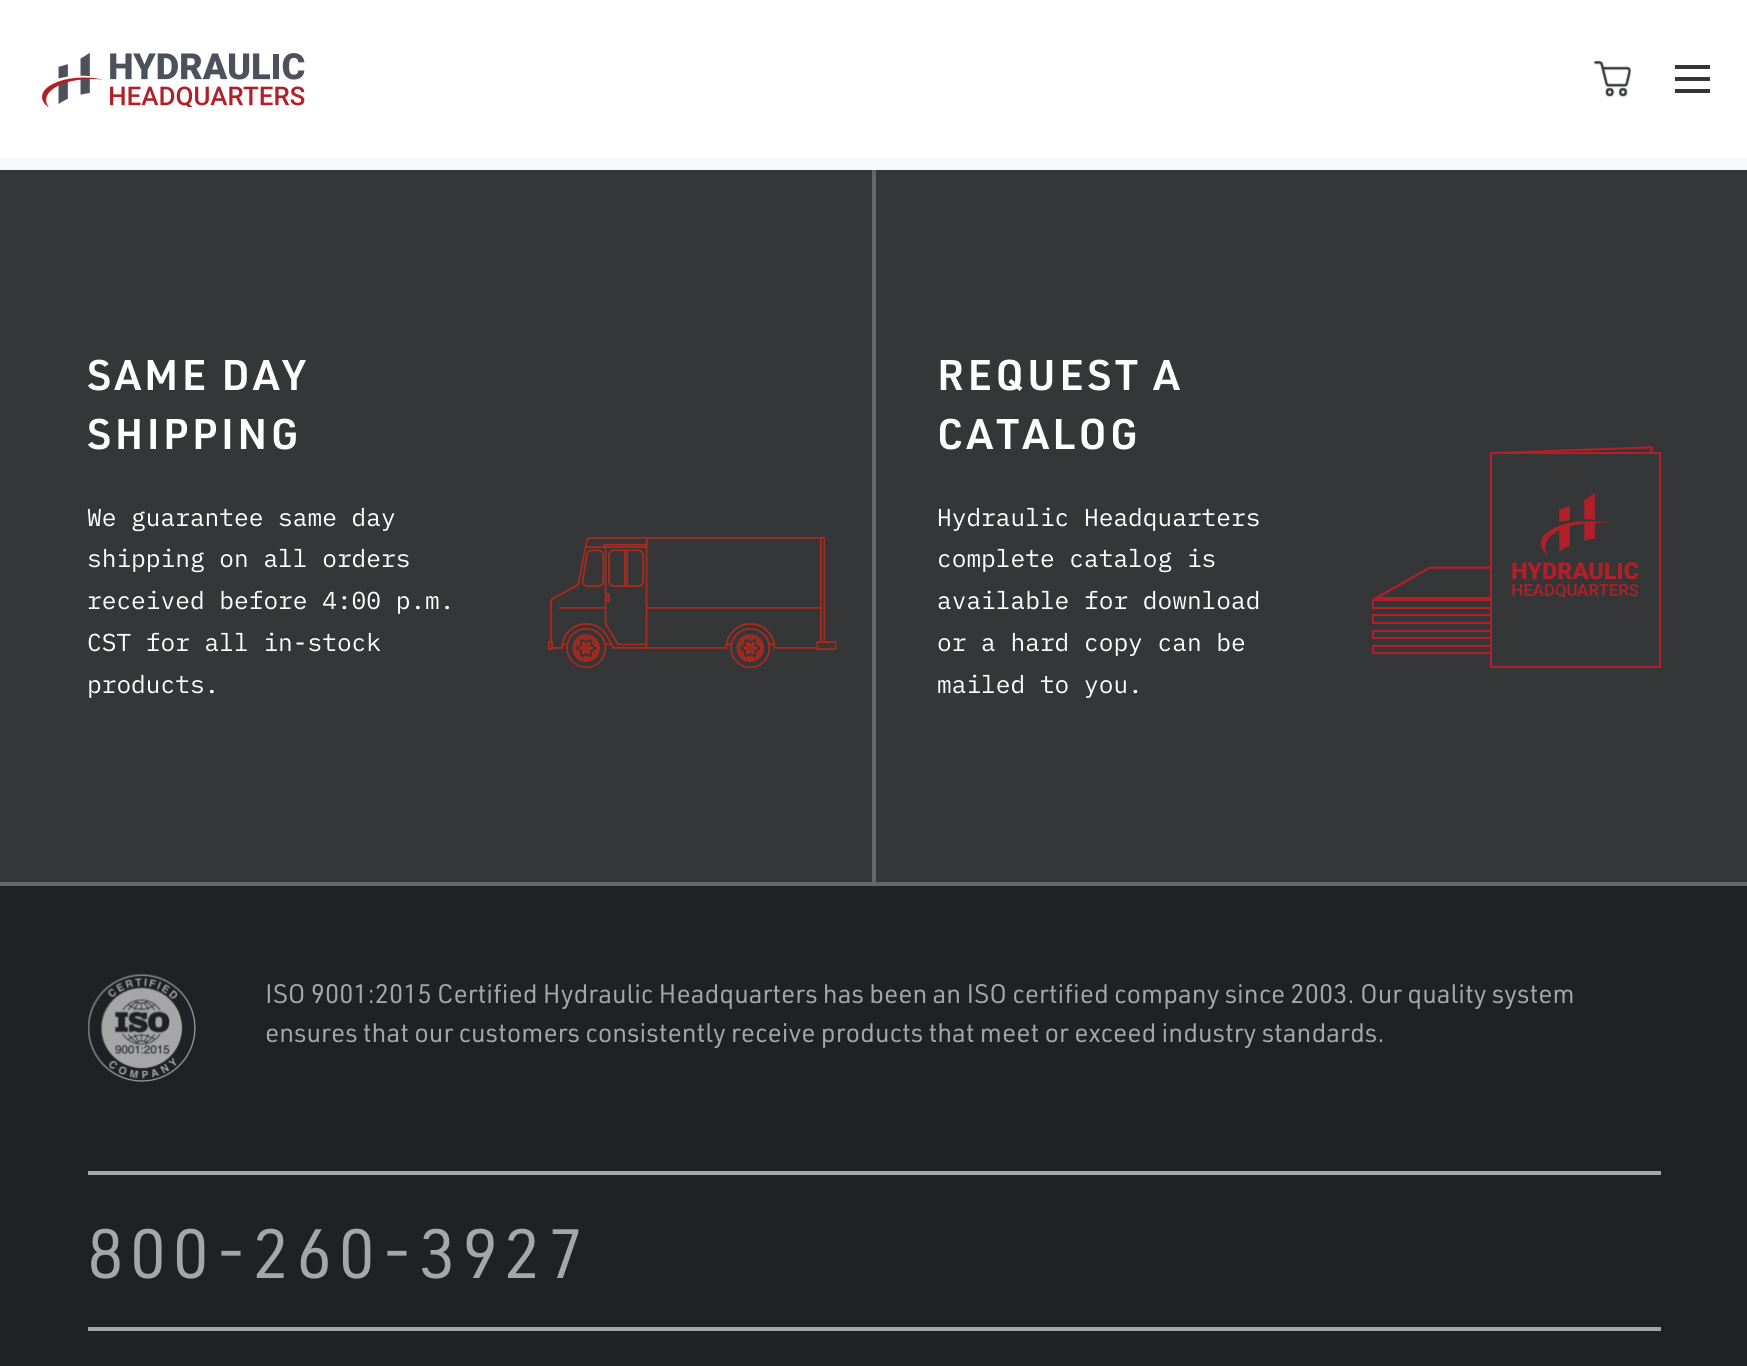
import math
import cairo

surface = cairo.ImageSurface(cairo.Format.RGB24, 1747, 1366)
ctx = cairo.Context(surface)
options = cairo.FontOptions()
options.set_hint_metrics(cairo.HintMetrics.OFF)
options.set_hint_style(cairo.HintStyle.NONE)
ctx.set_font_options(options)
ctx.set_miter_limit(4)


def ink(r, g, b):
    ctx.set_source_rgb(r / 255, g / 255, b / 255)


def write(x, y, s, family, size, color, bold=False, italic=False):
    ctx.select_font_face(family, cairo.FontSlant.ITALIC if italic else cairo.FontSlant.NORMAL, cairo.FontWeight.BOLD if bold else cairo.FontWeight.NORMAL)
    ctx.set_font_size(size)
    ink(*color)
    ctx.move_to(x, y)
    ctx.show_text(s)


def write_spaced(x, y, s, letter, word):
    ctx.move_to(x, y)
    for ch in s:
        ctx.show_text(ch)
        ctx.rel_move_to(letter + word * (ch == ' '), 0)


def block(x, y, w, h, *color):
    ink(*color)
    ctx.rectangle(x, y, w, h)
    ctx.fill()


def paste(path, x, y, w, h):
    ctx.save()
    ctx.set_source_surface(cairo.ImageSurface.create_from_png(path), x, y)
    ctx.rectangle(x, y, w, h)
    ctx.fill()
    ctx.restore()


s1 = dict(family="IBM Plex Mono", size=24.5, color=(255, 255, 255))
s2 = dict(family="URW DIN", size=26.25, color=(165, 166, 167))

ink(246, 248, 249)
ctx.paint()
block(0, 0, 1747, 158, 255, 255, 255)
paste("pic1.png", 42, 53, 263, 54)
paste("pic2.png", 1594, 61, 37, 36)
block(1675, 65, 35, 4, 52, 54, 56)
block(1675, 77, 35, 4, 52, 54, 56)
block(1675, 89, 35, 4, 52, 54, 56)
block(0, 170, 1747, 712, 52, 54, 56)
block(0, 882, 1747, 4, 100, 103, 106)
block(872, 170, 4, 712, 100, 103, 106)
ctx.select_font_face("URW DIN SemiBold")
ctx.set_font_size(42)
ink(255, 255, 255)
write_spaced(87, 390, "SAME DAY", 3.5, 0)
write_spaced(87, 449, "SHIPPING", 3.5, 0)
write(87, 526, "We guarantee same day", **s1)
write(87, 567, "shipping on all orders", **s1)
write(87, 609, "received before 4:00 p.m.", **s1)
write(87, 651, "CST for all in-stock", **s1)
write(87, 693, "products.", **s1)
paste("pic3.png", 548, 537, 289, 131)
ctx.select_font_face("URW DIN SemiBold")
ctx.set_font_size(42)
write_spaced(937, 390, "REQUEST A", 3.5, 0)
write_spaced(937, 449, "CATALOG", 3.5, 0)
write(937, 526, "Hydraulic Headquarters", **s1)
write(937, 567, "complete catalog is", **s1)
write(937, 609, "available for download", **s1)
write(937, 651, "or a hard copy can be", **s1)
write(937, 693, "mailed to you.", **s1)
paste("pic4.png", 1372, 446, 289, 222)
block(0, 886, 1747, 480, 32, 33, 36)
paste("pic5.png", 88, 973, 108, 109)
write(265, 1003, "ISO 9001:2015 Certified Hydraulic Headquarters has been an ISO certified company since 2003. Our quality system", **s2)
write(265, 1042, "ensures that our customers consistently receive products that meet or exceed industry standards.", **s2)
block(88, 1171, 1573, 4, 165, 166, 167)
block(88, 1327, 1573, 4, 165, 166, 167)
ctx.set_font_size(68.25)
write_spaced(87, 1278, "800-260-3927", 5.75, 0)
surface.write_to_png("screenshot.png")
